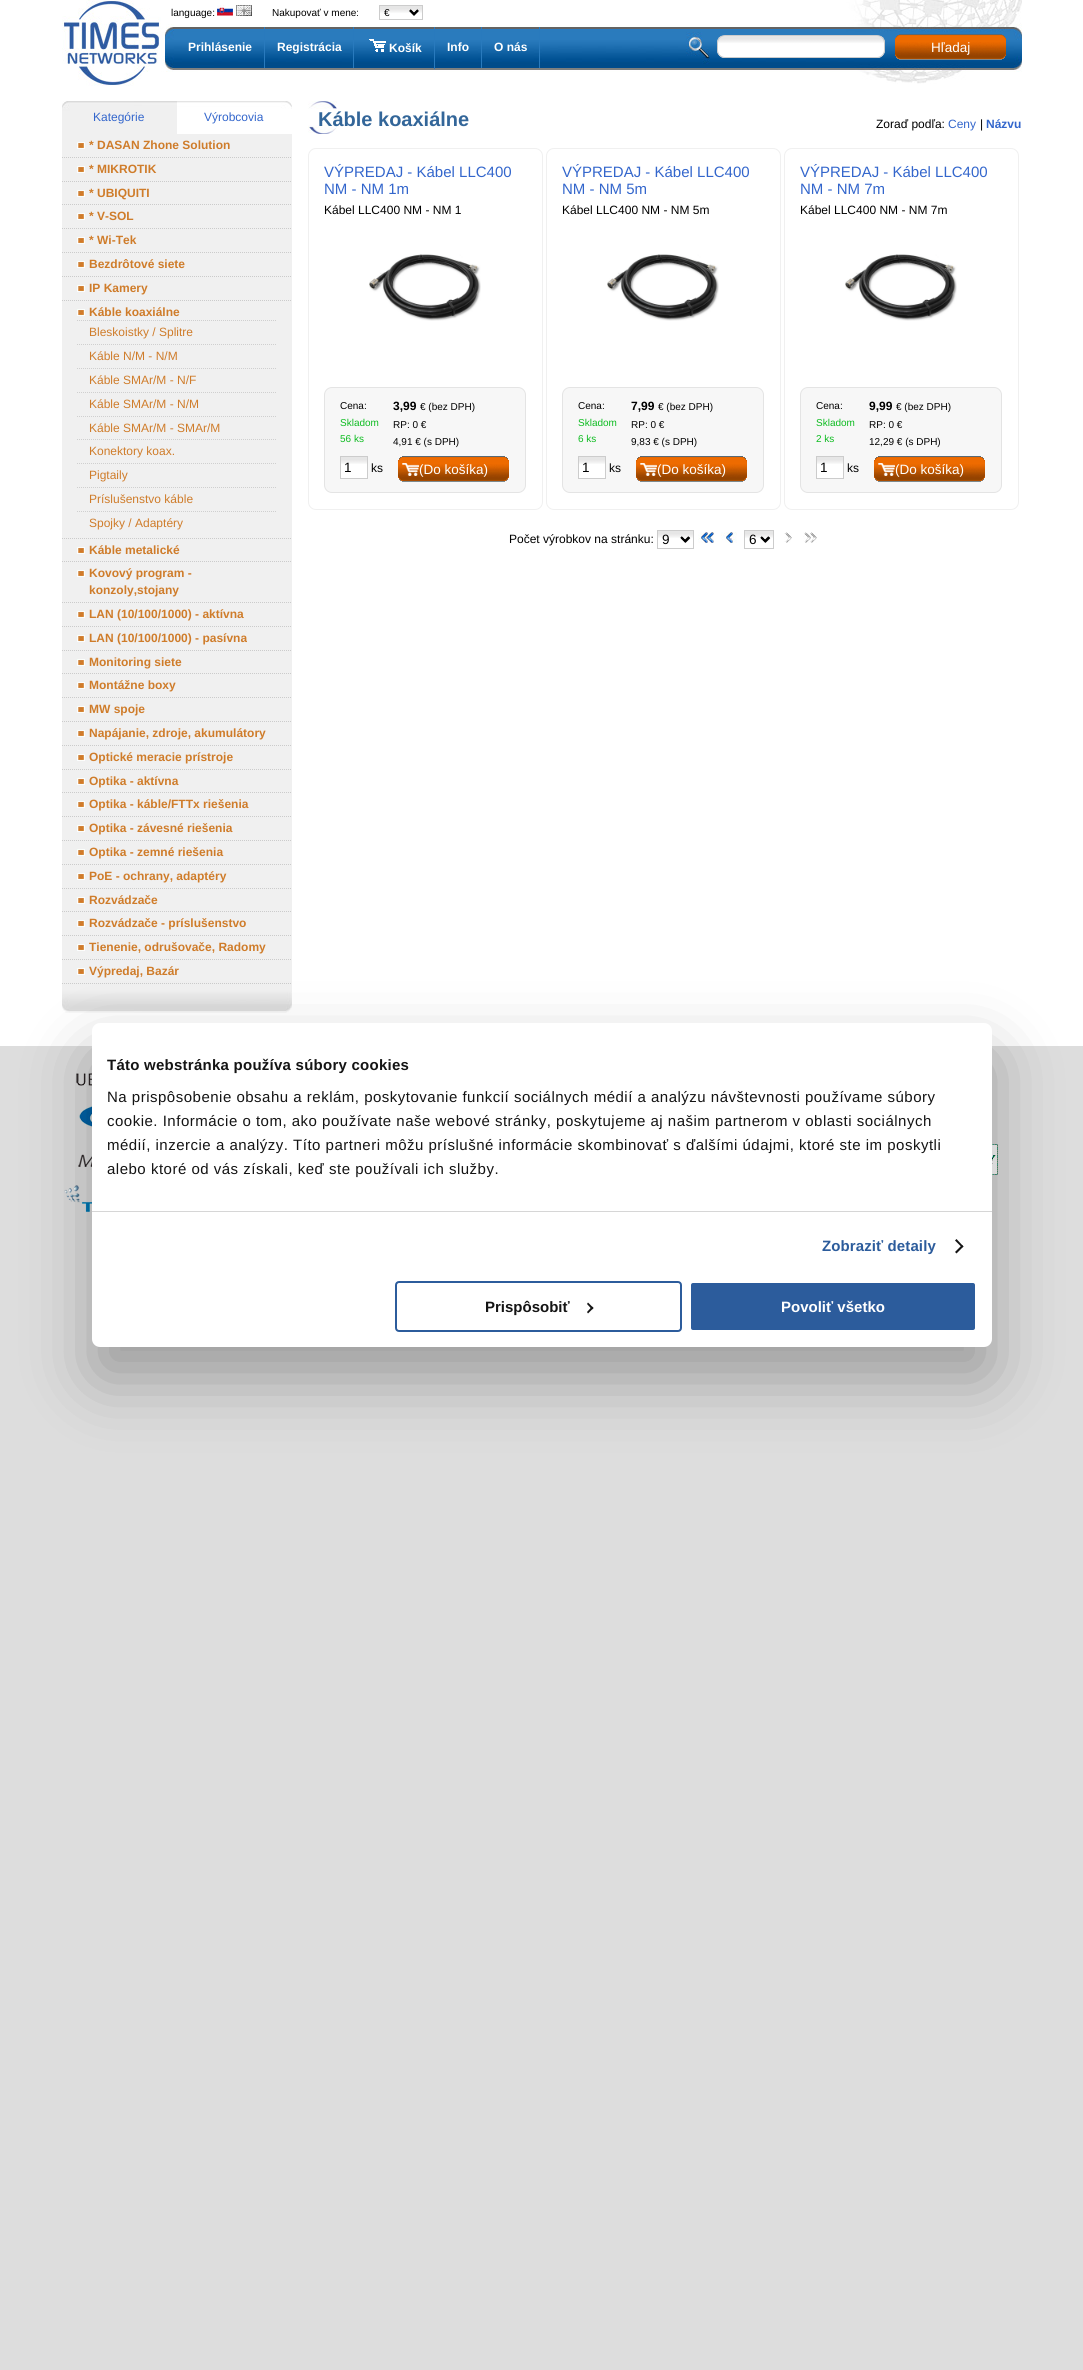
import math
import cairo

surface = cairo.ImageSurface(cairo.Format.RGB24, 1083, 2370)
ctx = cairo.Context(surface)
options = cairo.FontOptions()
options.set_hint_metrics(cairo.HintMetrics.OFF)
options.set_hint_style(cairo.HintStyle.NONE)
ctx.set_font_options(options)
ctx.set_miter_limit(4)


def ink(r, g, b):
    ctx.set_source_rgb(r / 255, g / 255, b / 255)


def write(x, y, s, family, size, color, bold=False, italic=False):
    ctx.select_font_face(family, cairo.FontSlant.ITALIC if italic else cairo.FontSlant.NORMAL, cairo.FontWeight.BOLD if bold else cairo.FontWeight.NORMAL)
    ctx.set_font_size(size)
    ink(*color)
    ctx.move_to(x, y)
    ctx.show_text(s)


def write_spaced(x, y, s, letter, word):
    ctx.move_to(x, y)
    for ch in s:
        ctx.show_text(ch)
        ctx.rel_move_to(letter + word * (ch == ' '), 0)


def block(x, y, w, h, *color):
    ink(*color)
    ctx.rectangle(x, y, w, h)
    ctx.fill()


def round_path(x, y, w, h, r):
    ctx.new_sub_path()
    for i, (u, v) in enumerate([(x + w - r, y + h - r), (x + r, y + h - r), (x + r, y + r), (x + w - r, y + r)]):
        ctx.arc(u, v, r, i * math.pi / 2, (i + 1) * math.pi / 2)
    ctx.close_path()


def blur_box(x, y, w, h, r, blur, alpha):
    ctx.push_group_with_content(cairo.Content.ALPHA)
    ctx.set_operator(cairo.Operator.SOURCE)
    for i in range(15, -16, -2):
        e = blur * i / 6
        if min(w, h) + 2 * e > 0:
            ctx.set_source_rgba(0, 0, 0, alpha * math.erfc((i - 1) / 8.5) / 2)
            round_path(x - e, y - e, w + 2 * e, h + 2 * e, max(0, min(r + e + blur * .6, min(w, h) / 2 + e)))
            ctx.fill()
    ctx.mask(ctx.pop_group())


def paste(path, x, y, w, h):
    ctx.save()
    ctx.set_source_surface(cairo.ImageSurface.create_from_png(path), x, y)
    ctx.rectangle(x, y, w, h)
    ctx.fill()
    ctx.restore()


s1 = dict(family="Liberation Sans", size=10, color=(0, 0, 0))
s2 = dict(family="Liberation Sans", size=12, color=(255, 255, 255), bold=True)
s3 = dict(family="Liberation Sans", size=13.5, color=(255, 255, 255))
s4 = dict(family="Liberation Sans", size=12, color=(51, 102, 204))
s5 = dict(family="Liberation Sans", size=12, color=(207, 124, 42), bold=True)
s6 = dict(family="Liberation Sans", size=12, color=(207, 124, 42))
s7 = dict(family="Liberation Sans", size=20, color=(51, 102, 153), bold=True)
s8 = dict(family="Liberation Sans", size=12, color=(0, 0, 0))
s9 = dict(family="Liberation Sans", size=12, color=(51, 102, 204), bold=True)
s10 = dict(family="Liberation Sans", size=15, color=(51, 102, 204))
s11 = dict(family="Liberation Sans", size=10, color=(14, 188, 33))
s12 = dict(family="Liberation Sans", size=12, color=(0, 0, 0), bold=True)
s13 = dict(family="Liberation Sans", size=13.5, color=(0, 0, 0))
s14 = dict(family="Liberation Sans", size=15, color=(20, 20, 20), bold=True)
s15 = dict(family="Liberation Sans", size=15, color=(255, 255, 255), bold=True)

ink(221, 221, 221)
ctx.paint()
block(0, 0, 1083, 1046, 255, 255, 255)
paste("pic1.png", 161, 0, 861, 84)
paste("pic2.png", 62, 0, 99, 86)
write(171, 16, "language:", **s1)
paste("pic3.png", 217, 5, 16, 11)
paste("pic4.png", 236, 5, 16, 11)
write(272, 16, "Nakupovať v mene:", **s1)
paste("pic5.png", 380, 6, 42, 10)
ctx.rectangle(379.5, 5.5, 43, 14)
ink(204, 204, 204)
ctx.set_line_width(1)
ctx.stroke()
ctx.new_path()
ctx.move_to(410, 10.5)
ctx.line_to(414, 14.5)
ctx.line_to(418, 10.5)
ink(0, 0, 0)
ctx.set_line_width(2)
ctx.stroke()
write(384, 16, "€", **s1)
block(264, 27, 1, 41, 41, 122, 189)
write(188, 51, "Prihlásenie", **s2)
block(353, 27, 1, 41, 41, 122, 189)
write(277, 51, "Registrácia", **s2)
block(434, 27, 1, 42, 41, 122, 189)
paste("pic6.png", 369, 39, 17, 13)
write(389, 52, "Košík", **s2)
block(481, 27, 1, 41, 41, 122, 189)
write(447, 51, "Info", **s2)
block(539, 27, 1, 41, 41, 122, 189)
write(494, 51, "O nás", **s2)
paste("pic7.png", 717, 36, 168, 22)
round_path(717.5, 35.5, 167, 22, 7.5)
ink(204, 204, 204)
ctx.set_line_width(1)
ctx.stroke()
paste("pic8.png", 895, 34, 111, 26)
write(931, 52, "Hľadaj", **s3)
paste("pic9.png", 62, 101, 115, 33)
write(93, 121, "Kategórie", **s4)
paste("pic10.png", 177, 101, 115, 8)
write(204, 121, "Výrobcovia", **s4)
block(62, 134, 230, 850, 240, 240, 240)
ctx.new_path()
ctx.move_to(62, 157.5)
ctx.line_to(292, 157.5)
ink(203, 203, 203)
ctx.set_dash([1, 1])
ctx.stroke()
paste("pic11.png", 77, 142, 8, 7)
write(89, 149, "* DASAN Zhone Solution", **s5)
ctx.new_path()
ctx.move_to(62, 181.5)
ctx.line_to(292, 181.5)
ink(203, 203, 203)
ctx.stroke()
paste("pic11.png", 77, 166, 8, 7)
write(89, 173, "* MIKROTIK", **s5)
ctx.new_path()
ctx.move_to(62, 204.5)
ctx.line_to(292, 204.5)
ink(203, 203, 203)
ctx.stroke()
paste("pic11.png", 77, 190, 8, 7)
write(89, 197, "* UBIQUITI", **s5)
ctx.new_path()
ctx.move_to(62, 228.5)
ctx.line_to(292, 228.5)
ink(203, 203, 203)
ctx.stroke()
paste("pic11.png", 77, 213, 8, 7)
write(89, 220, "* V-SOL", **s5)
ctx.new_path()
ctx.move_to(62, 252.5)
ctx.line_to(292, 252.5)
ink(203, 203, 203)
ctx.stroke()
paste("pic11.png", 77, 237, 8, 7)
write(89, 244, "* Wi-Tek", **s5)
ctx.new_path()
ctx.move_to(62, 276.5)
ctx.line_to(292, 276.5)
ink(203, 203, 203)
ctx.stroke()
paste("pic11.png", 77, 261, 8, 7)
write(89, 268, "Bezdrôtové siete", **s5)
ctx.new_path()
ctx.move_to(62, 300.5)
ctx.line_to(292, 300.5)
ink(203, 203, 203)
ctx.stroke()
paste("pic11.png", 77, 285, 8, 7)
write(89, 292, "IP Kamery", **s5)
ctx.new_path()
ctx.move_to(62, 538.5)
ctx.line_to(292, 538.5)
ink(203, 203, 203)
ctx.stroke()
paste("pic11.png", 77, 309, 8, 7)
write(89, 316, "Káble koaxiálne", **s5)
ctx.new_path()
ctx.move_to(77, 320.5)
ctx.line_to(277, 320.5)
ink(207, 207, 207)
ctx.stroke()
write(89, 336, "Bleskoistky / Splitre", **s6)
ctx.new_path()
ctx.move_to(77, 344.5)
ctx.line_to(277, 344.5)
ink(207, 207, 207)
ctx.stroke()
write(89, 360, "Káble N/M - N/M", **s6)
ctx.new_path()
ctx.move_to(77, 368.5)
ctx.line_to(277, 368.5)
ink(207, 207, 207)
ctx.stroke()
write(89, 384, "Káble SMAr/M - N/F", **s6)
ctx.new_path()
ctx.move_to(77, 392.5)
ctx.line_to(277, 392.5)
ink(207, 207, 207)
ctx.stroke()
write(89, 408, "Káble SMAr/M - N/M", **s6)
ctx.new_path()
ctx.move_to(77, 416.5)
ctx.line_to(277, 416.5)
ink(207, 207, 207)
ctx.stroke()
write(89, 432, "Káble SMAr/M - SMAr/M", **s6)
ctx.new_path()
ctx.move_to(77, 439.5)
ctx.line_to(277, 439.5)
ink(207, 207, 207)
ctx.stroke()
write(89, 455, "Konektory koax.", **s6)
ctx.new_path()
ctx.move_to(77, 463.5)
ctx.line_to(277, 463.5)
ink(207, 207, 207)
ctx.stroke()
write(89, 479, "Pigtaily", **s6)
ctx.new_path()
ctx.move_to(77, 487.5)
ctx.line_to(277, 487.5)
ink(207, 207, 207)
ctx.stroke()
write(89, 503, "Príslušenstvo káble", **s6)
ctx.new_path()
ctx.move_to(77, 511.5)
ctx.line_to(277, 511.5)
ink(207, 207, 207)
ctx.stroke()
write(89, 527, "Spojky / Adaptéry", **s6)
ctx.new_path()
ctx.move_to(62, 561.5)
ctx.line_to(292, 561.5)
ink(203, 203, 203)
ctx.stroke()
paste("pic11.png", 77, 547, 8, 7)
write(89, 554, "Káble metalické", **s5)
ctx.new_path()
ctx.move_to(62, 602.5)
ctx.line_to(292, 602.5)
ink(203, 203, 203)
ctx.stroke()
paste("pic11.png", 77, 570, 8, 7)
write(89, 577, "Kovový program -", **s5)
write(89, 594, "konzoly,stojany", **s5)
ctx.new_path()
ctx.move_to(62, 626.5)
ctx.line_to(292, 626.5)
ink(203, 203, 203)
ctx.stroke()
paste("pic11.png", 77, 611, 8, 7)
write(89, 618, "LAN (10/100/1000) - aktívna", **s5)
ctx.new_path()
ctx.move_to(62, 650.5)
ctx.line_to(292, 650.5)
ink(203, 203, 203)
ctx.stroke()
paste("pic11.png", 77, 635, 8, 7)
write(89, 642, "LAN (10/100/1000) - pasívna", **s5)
ctx.new_path()
ctx.move_to(62, 673.5)
ctx.line_to(292, 673.5)
ink(203, 203, 203)
ctx.stroke()
paste("pic11.png", 77, 659, 8, 7)
write(89, 666, "Monitoring siete", **s5)
ctx.new_path()
ctx.move_to(62, 697.5)
ctx.line_to(292, 697.5)
ink(203, 203, 203)
ctx.stroke()
paste("pic11.png", 77, 682, 8, 7)
write(89, 689, "Montážne boxy", **s5)
ctx.new_path()
ctx.move_to(62, 721.5)
ctx.line_to(292, 721.5)
ink(203, 203, 203)
ctx.stroke()
paste("pic11.png", 77, 706, 8, 7)
write(89, 713, "MW spoje", **s5)
ctx.new_path()
ctx.move_to(62, 745.5)
ctx.line_to(292, 745.5)
ink(203, 203, 203)
ctx.stroke()
paste("pic11.png", 77, 730, 8, 7)
write(89, 737, "Napájanie, zdroje, akumulátory", **s5)
ctx.new_path()
ctx.move_to(62, 769.5)
ctx.line_to(292, 769.5)
ink(203, 203, 203)
ctx.stroke()
paste("pic11.png", 77, 754, 8, 7)
write(89, 761, "Optické meracie prístroje", **s5)
ctx.new_path()
ctx.move_to(62, 792.5)
ctx.line_to(292, 792.5)
ink(203, 203, 203)
ctx.stroke()
paste("pic11.png", 77, 778, 8, 7)
write(89, 785, "Optika - aktívna", **s5)
ctx.new_path()
ctx.move_to(62, 816.5)
ctx.line_to(292, 816.5)
ink(203, 203, 203)
ctx.stroke()
paste("pic11.png", 77, 801, 8, 7)
write(89, 808, "Optika - káble/FTTx riešenia", **s5)
ctx.new_path()
ctx.move_to(62, 840.5)
ctx.line_to(292, 840.5)
ink(203, 203, 203)
ctx.stroke()
paste("pic11.png", 77, 825, 8, 7)
write(89, 832, "Optika - závesné riešenia", **s5)
ctx.new_path()
ctx.move_to(62, 864.5)
ctx.line_to(292, 864.5)
ink(203, 203, 203)
ctx.stroke()
paste("pic11.png", 77, 849, 8, 7)
write(89, 856, "Optika - zemné riešenia", **s5)
ctx.new_path()
ctx.move_to(62, 888.5)
ctx.line_to(292, 888.5)
ink(203, 203, 203)
ctx.stroke()
paste("pic11.png", 77, 873, 8, 7)
write(89, 880, "PoE - ochrany, adaptéry", **s5)
ctx.new_path()
ctx.move_to(62, 911.5)
ctx.line_to(292, 911.5)
ink(203, 203, 203)
ctx.stroke()
paste("pic11.png", 77, 897, 8, 7)
write(89, 904, "Rozvádzače", **s5)
ctx.new_path()
ctx.move_to(62, 935.5)
ctx.line_to(292, 935.5)
ink(203, 203, 203)
ctx.stroke()
paste("pic11.png", 77, 920, 8, 7)
write(89, 927, "Rozvádzače - príslušenstvo", **s5)
ctx.new_path()
ctx.move_to(62, 959.5)
ctx.line_to(292, 959.5)
ink(203, 203, 203)
ctx.stroke()
paste("pic11.png", 77, 944, 8, 7)
write(89, 951, "Tienenie, odrušovače, Radomy", **s5)
ctx.new_path()
ctx.move_to(62, 983.5)
ctx.line_to(292, 983.5)
ink(203, 203, 203)
ctx.stroke()
paste("pic11.png", 77, 968, 8, 7)
write(89, 975, "Výpredaj, Bazár", **s5)
paste("pic12.png", 62, 984, 230, 29)
paste("pic13.png", 308, 101, 29, 33)
write(318, 126, "Káble koaxiálne", **s7)
write(876, 128, "Zoraď podľa:", **s8)
write(948, 128, "Ceny", **s4)
write(980, 128, "|", **s8)
write(986, 128, "Názvu", **s9)
round_path(308.5, 148.5, 234, 361, 7.5)
ink(240, 240, 240)
ctx.set_dash([])
ctx.stroke()
write(324, 177, "VÝPREDAJ - Kábel LLC400", **s10)
write(324, 194, "NM - NM 1m", **s10)
write(324, 214, "Kábel LLC400 NM - NM 1", **s8)
paste("pic14.png", 369, 254, 112, 67)
ink(247, 247, 247)
round_path(324.5, 387.5, 201, 105, 7.5)
ctx.fill_preserve()
ink(228, 228, 228)
ctx.stroke()
write(340, 409, "Cena:", **s1)
write(340, 426, "Skladom", **s11)
write(340, 442, "56 ks", **s11)
write(393, 410, "3,99", **s12)
write(420, 410, "€ (bez DPH)", **s1)
write(393, 428, "RP: 0 €", **s1)
write(393, 445, "4,91 € (s DPH)", **s1)
block(341, 464, 26, 14, 255, 255, 255)
paste("pic15.png", 341, 457, 26, 7)
ctx.rectangle(340.5, 456.5, 27, 22)
ink(204, 204, 204)
ctx.stroke()
write(344, 472, "1", **s13)
write(371, 472, "ks", **s8)
paste("pic16.png", 398, 456, 111, 26)
write(419, 474, "(Do košíka)", **s3)
round_path(546.5, 148.5, 234, 361, 7.5)
ink(240, 240, 240)
ctx.stroke()
write(562, 177, "VÝPREDAJ - Kábel LLC400", **s10)
write(562, 194, "NM - NM 5m", **s10)
write(562, 214, "Kábel LLC400 NM - NM 5m", **s8)
paste("pic14.png", 607, 254, 112, 67)
ink(247, 247, 247)
round_path(562.5, 387.5, 201, 105, 7.5)
ctx.fill_preserve()
ink(228, 228, 228)
ctx.stroke()
write(578, 409, "Cena:", **s1)
write(578, 426, "Skladom", **s11)
write(578, 442, "6 ks", **s11)
write(631, 410, "7,99", **s12)
write(658, 410, "€ (bez DPH)", **s1)
write(631, 428, "RP: 0 €", **s1)
write(631, 445, "9,83 € (s DPH)", **s1)
block(579, 464, 26, 14, 255, 255, 255)
paste("pic15.png", 579, 457, 26, 7)
ctx.rectangle(578.5, 456.5, 27, 22)
ink(204, 204, 204)
ctx.stroke()
write(582, 472, "1", **s13)
write(609, 472, "ks", **s8)
paste("pic16.png", 636, 456, 111, 26)
write(657, 474, "(Do košíka)", **s3)
round_path(784.5, 148.5, 234, 361, 7.5)
ink(240, 240, 240)
ctx.stroke()
write(800, 177, "VÝPREDAJ - Kábel LLC400", **s10)
write(800, 194, "NM - NM 7m", **s10)
write(800, 214, "Kábel LLC400 NM - NM 7m", **s8)
paste("pic14.png", 845, 254, 112, 67)
ink(247, 247, 247)
round_path(800.5, 387.5, 201, 105, 7.5)
ctx.fill_preserve()
ink(228, 228, 228)
ctx.stroke()
write(816, 409, "Cena:", **s1)
write(816, 426, "Skladom", **s11)
write(816, 442, "2 ks", **s11)
write(869, 410, "9,99", **s12)
write(896, 410, "€ (bez DPH)", **s1)
write(869, 428, "RP: 0 €", **s1)
write(869, 445, "12,29 € (s DPH)", **s1)
block(817, 464, 26, 14, 255, 255, 255)
paste("pic15.png", 817, 457, 26, 7)
ctx.rectangle(816.5, 456.5, 27, 22)
ink(204, 204, 204)
ctx.stroke()
write(820, 472, "1", **s13)
write(847, 472, "ks", **s8)
paste("pic16.png", 874, 456, 111, 26)
write(895, 474, "(Do košíka)", **s3)
write(509, 543, "Počet výrobkov na stránku:", **s8)
paste("pic17.png", 658, 531, 35, 12)
ctx.rectangle(657.5, 530.5, 36, 18)
ink(204, 204, 204)
ctx.stroke()
ctx.new_path()
ctx.move_to(681.5, 537.5)
ctx.line_to(685.5, 541.5)
ctx.line_to(689.5, 537.5)
ink(0, 0, 0)
ctx.set_line_width(2)
ctx.stroke()
write(662, 544, "9", **s13)
paste("pic18.png", 698, 532, 16, 11)
paste("pic19.png", 721, 532, 16, 11)
paste("pic20.png", 745, 531, 28, 12)
ctx.rectangle(744.5, 530.5, 29, 18)
ink(204, 204, 204)
ctx.set_line_width(1)
ctx.stroke()
ctx.new_path()
ctx.move_to(761.5, 537.5)
ctx.line_to(765.5, 541.5)
ctx.line_to(769.5, 537.5)
ink(0, 0, 0)
ctx.set_line_width(2)
ctx.stroke()
write(749, 544, "6", **s13)
paste("pic21.png", 784, 532, 8, 11)
paste("pic22.png", 803, 532, 14, 11)
paste("pic23.png", 76, 1073, 16, 13)
paste("pic24.png", 79, 1106, 13, 21)
paste("pic25.png", 78, 1154, 14, 13)
paste("pic26.png", 64, 1185, 28, 27)
paste("pic27.png", 992, 1144, 6, 31)
ink(0, 0, 0)
blur_box(92, 1055, 900, 324, 8, 34, 0.3)
ink(255, 255, 255)
round_path(92, 1023, 900, 324, 8)
ctx.fill()
block(92, 1211, 900, 1, 214, 214, 214)
ctx.select_font_face("Liberation Sans", cairo.FontSlant.NORMAL, cairo.FontWeight.BOLD)
ctx.set_font_size(15)
ink(20, 20, 20)
write_spaced(107, 1070, "Táto webstránka používa súbory cookies", 0.25, 0)
ctx.select_font_face("Liberation Sans")
write_spaced(107, 1102, "Na prispôsobenie obsahu a reklám, poskytovanie funkcií sociálnych médií a analýzu návštevnosti používame súbory", 0.5, 0)
write_spaced(107, 1126, "cookie. Informácie o tom, ako používate naše webové stránky, poskytujeme aj našim partnerom v oblasti sociálnych", 0.5, 0)
write_spaced(107, 1150, "médií, inzercie a analýzy. Títo partneri môžu príslušné informácie skombinovať s ďalšími údajmi, ktoré ste im poskytli", 0.5, 0)
write_spaced(107, 1174, "alebo ktoré od vás získali, keď ste používali ich služby.", 0.5, 0)
ctx.select_font_face("Liberation Sans", cairo.FontSlant.NORMAL, cairo.FontWeight.BOLD)
ink(44, 92, 156)
write_spaced(822, 1251, "Zobraziť detaily", 0.1, 0)
ink(20, 20, 20)
ctx.new_path()
ctx.move_to(956.5, 1239)
ctx.line_to(963.5, 1246.5)
ctx.line_to(962, 1247.5)
ctx.line_to(955, 1240.5)
ctx.close_path()
ctx.fill()
ctx.new_path()
ctx.move_to(962, 1245)
ctx.line_to(963.5, 1246.5)
ctx.line_to(956.5, 1253.5)
ctx.line_to(955, 1252)
ctx.close_path()
ctx.fill()
round_path(396, 1282, 285, 49, 3)
ink(44, 92, 156)
ctx.stroke()
write(485, 1312, "Prispôsobiť", **s14)
ctx.new_path()
ctx.move_to(588, 1302.5)
ctx.line_to(593.5, 1308)
ctx.line_to(592, 1309.5)
ctx.line_to(587, 1304)
ctx.close_path()
ctx.fill()
ctx.new_path()
ctx.move_to(592, 1306.5)
ctx.line_to(593.5, 1308)
ctx.line_to(588, 1313.5)
ctx.line_to(587, 1312)
ctx.close_path()
ctx.fill()
ink(44, 92, 156)
round_path(690, 1282, 286, 49, 3)
ctx.fill_preserve()
ink(255, 255, 255)
ctx.stroke()
write(781, 1312, "Povoliť všetko", **s15)
surface.write_to_png("screenshot.png")
